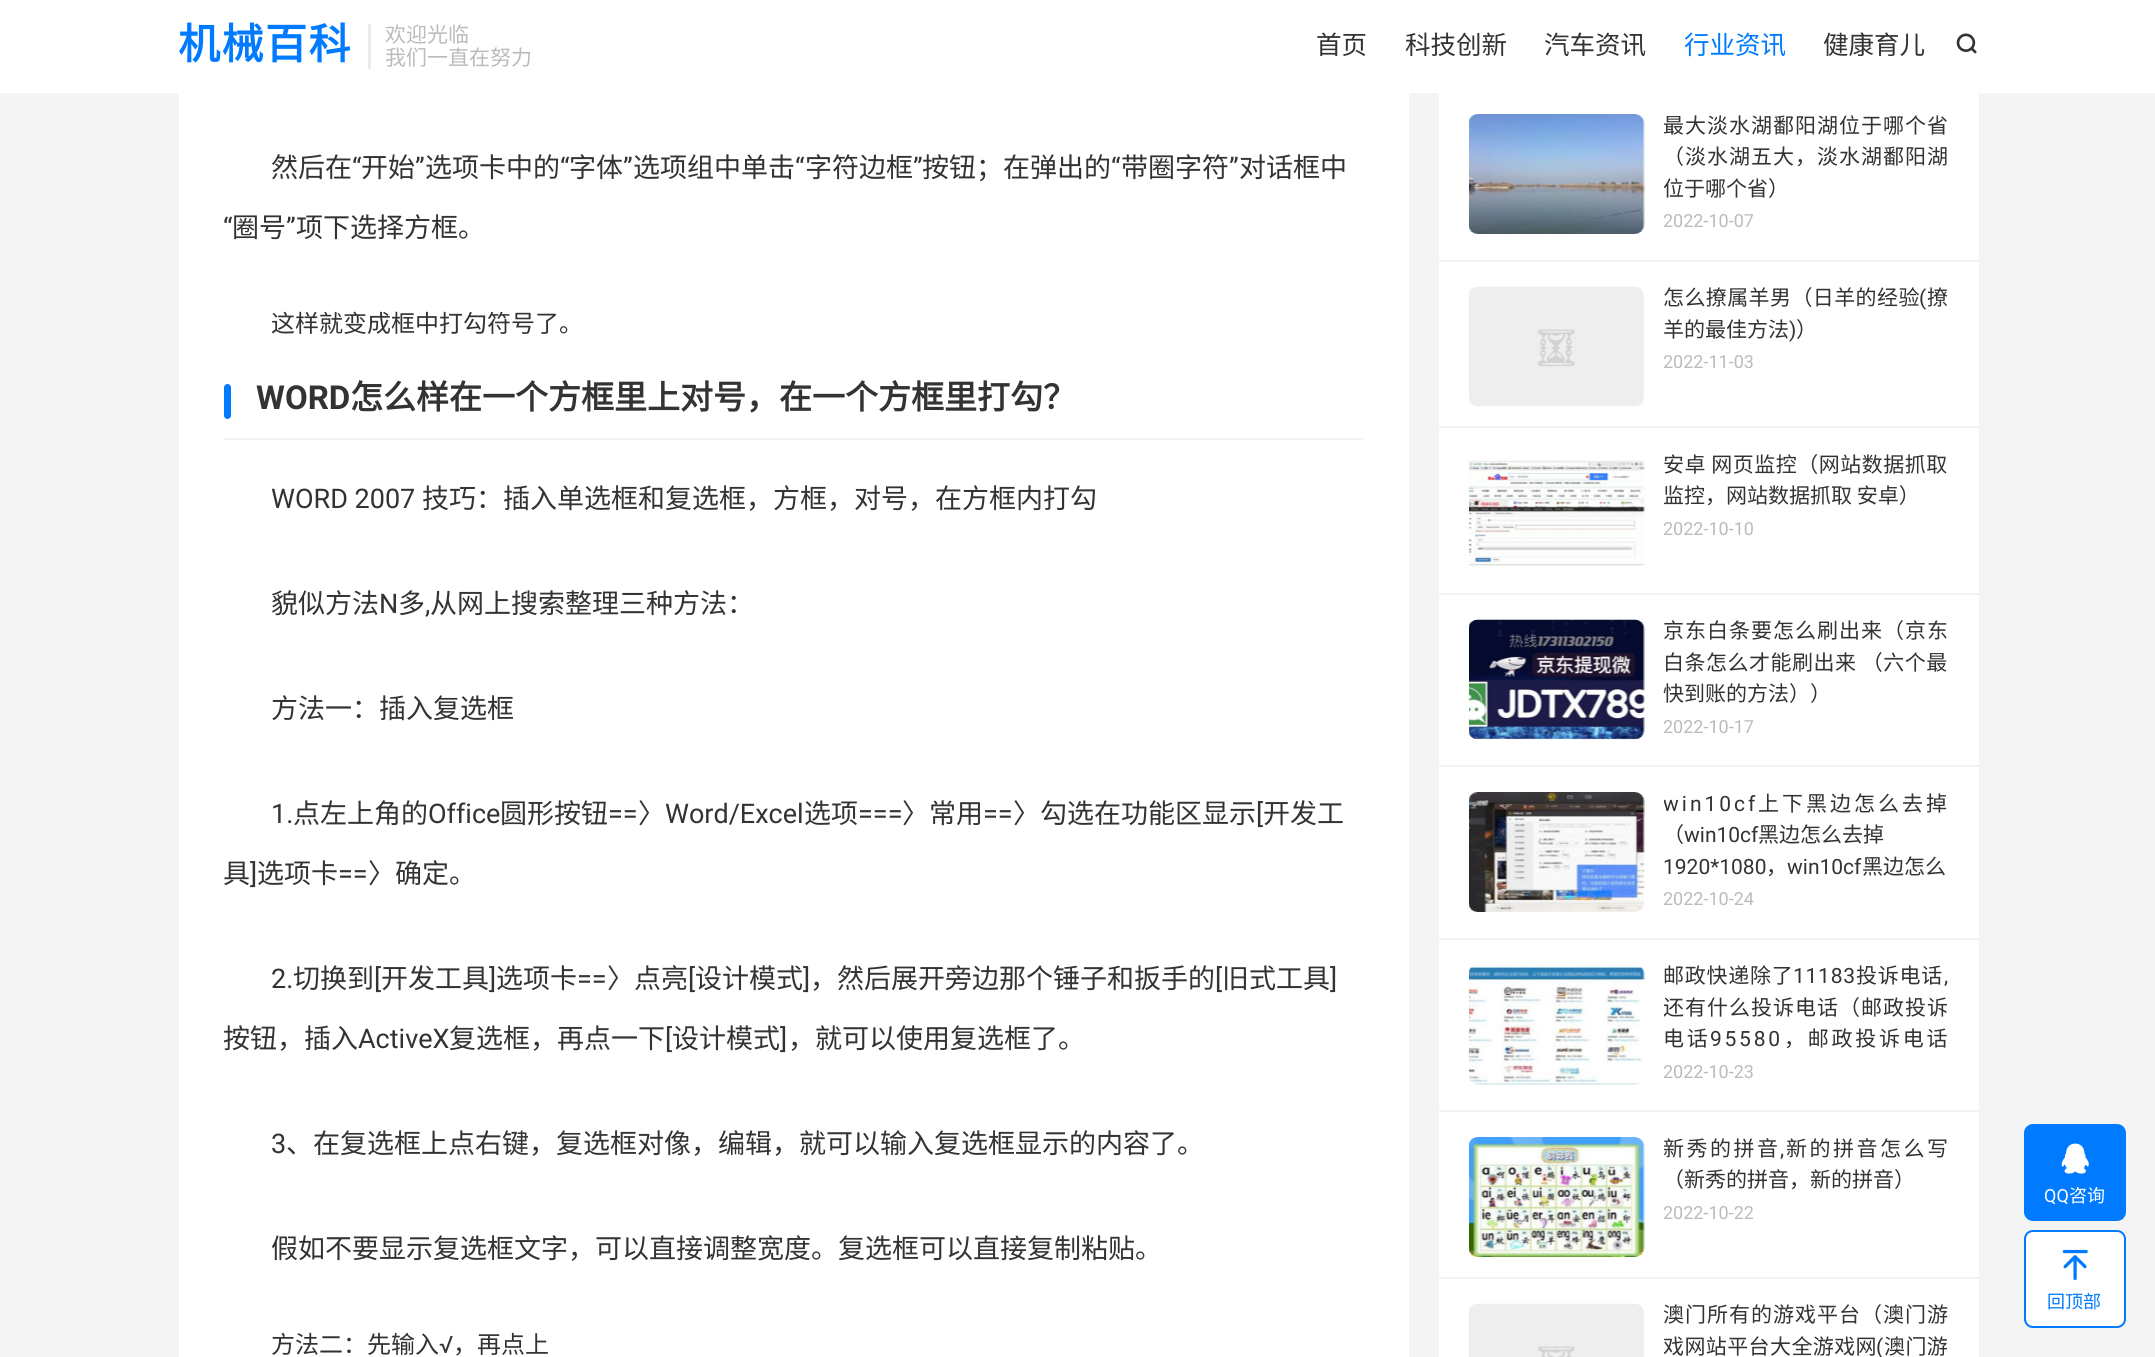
import math
import cairo

surface = cairo.ImageSurface(cairo.Format.RGB24, 2155, 1357)
ctx = cairo.Context(surface)
options = cairo.FontOptions()
options.set_hint_metrics(cairo.HintMetrics.OFF)
options.set_hint_style(cairo.HintStyle.NONE)
ctx.set_font_options(options)
ctx.set_miter_limit(4)


def ink(r, g, b):
    ctx.set_source_rgb(r / 255, g / 255, b / 255)


def write(x, y, s, family, size, color, bold=False, italic=False):
    ctx.select_font_face(family, cairo.FontSlant.ITALIC if italic else cairo.FontSlant.NORMAL, cairo.FontWeight.BOLD if bold else cairo.FontWeight.NORMAL)
    ctx.set_font_size(size)
    ink(*color)
    ctx.move_to(x, y)
    ctx.show_text(s)


def write_spaced(x, y, s, letter, word):
    ctx.move_to(x, y)
    for ch in s:
        ctx.show_text(ch)
        ctx.rel_move_to(letter + word * (ch == ' '), 0)


def block(x, y, w, h, *color):
    ink(*color)
    ctx.rectangle(x, y, w, h)
    ctx.fill()


def round_path(x, y, w, h, r):
    ctx.new_sub_path()
    for i, (u, v) in enumerate([(x + w - r, y + h - r), (x + r, y + h - r), (x + r, y + r), (x + w - r, y + r)]):
        ctx.arc(u, v, r, i * math.pi / 2, (i + 1) * math.pi / 2)
    ctx.close_path()


def paste(path, x, y, w, h):
    ctx.save()
    ctx.set_source_surface(cairo.ImageSurface.create_from_png(path), x, y)
    ctx.rectangle(x, y, w, h)
    ctx.fill()
    ctx.restore()


s1 = dict(family="Noto Sans CJK SC", size=21, color=(187, 187, 187))
s2 = dict(family="Noto Sans CJK SC", size=25.5, color=(51, 51, 51))
s3 = dict(family="Noto Sans CJK SC", size=25.5, color=(0, 123, 255))
s4 = dict(family="Noto Sans CJK SC", size=27, color=(51, 51, 51))
s5 = dict(family="Roboto", size=27, color=(51, 51, 51))
s6 = dict(family="Noto Sans CJK SC", size=24, color=(51, 51, 51))
s7 = dict(family="Roboto", size=33, color=(51, 51, 51), bold=True)
s8 = dict(family="Noto Sans CJK SC", size=33, color=(51, 51, 51), bold=True)
s9 = dict(family="Roboto", size=24, color=(51, 51, 51))
s10 = dict(family="Noto Sans CJK SC", size=21, color=(51, 51, 51))
s11 = dict(family="Roboto", size=18, color=(187, 187, 187))
s12 = dict(family="Roboto", size=21, color=(51, 51, 51))
s13 = dict(family="Roboto", size=18, color=(255, 255, 255))
s14 = dict(family="Noto Sans CJK SC", size=18, color=(255, 255, 255))
s15 = dict(family="Noto Sans CJK SC", size=18, color=(0, 123, 255))

ink(244, 244, 244)
ctx.paint()
block(0, 0, 2155, 93, 255, 255, 255)
ctx.select_font_face("Noto Sans CJK SC", cairo.FontSlant.NORMAL, cairo.FontWeight.BOLD)
ctx.set_font_size(42)
ink(0, 123, 255)
write_spaced(178, 59, "机械百科", 1.5, 0)
block(368, 24, 3, 45, 234, 234, 234)
write(385, 42, "欢迎光临", **s1)
write(385, 65, "我们一直在努力", **s1)
write(1316, 54, "首页", **s2)
write(1405, 54, "科技创新", **s2)
write(1544, 54, "汽车资讯", **s2)
write(1684, 54, "行业资讯", **s3)
write(1823, 54, "健康育儿", **s2)
paste("pic1.png", 1956, 33, 21, 21)
block(179, 93, 1230, 1264, 255, 255, 255)
write(271, 177, "然后在", **s4)
write(352, 177, "“", **s5)
write(361, 177, "开始", **s4)
write(415, 177, "”", **s5)
write(425, 177, "选项卡中的", **s4)
write(560, 177, "“", **s5)
write(569, 177, "字体", **s4)
write(623, 177, "”", **s5)
write(633, 177, "选项组中单击", **s4)
write(795, 177, "“", **s5)
write(805, 177, "字符边框", **s4)
write(913, 177, "”", **s5)
write(922, 177, "按钮；在弹出的", **s4)
write(1111, 177, "“", **s5)
write(1121, 177, "带圈字符", **s4)
write(1229, 177, "”", **s5)
write(1239, 177, "对话框中", **s4)
write(223, 237, "“", **s5)
write(232, 237, "圈号", **s4)
write(286, 237, "”", **s5)
write(296, 237, "项下选择方框。", **s4)
write(271, 332, "这样就变成框中打勾符号了。", **s6)
block(224, 438, 1140, 2, 243, 243, 243)
ink(0, 123, 255)
round_path(224, 384, 7, 35, 3.5)
ctx.fill()
write(256, 409, "WORD", **s7)
write(350, 409, "怎么样在一个方框里上对号，在一个方框里打勾？", **s8)
write(271, 508, "WORD 2007", **s5)
write(422, 508, "技巧：插入单选框和复选框，方框，对号，在方框内打勾", **s4)
write(271, 613, "貌似方法", **s4)
write(379, 613, "N", **s5)
write(398, 613, "多", **s4)
write(425, 613, ",", **s5)
write(430, 613, "从网上搜索整理三种方法：", **s4)
write(271, 718, "方法一：插入复选框", **s4)
write(271, 823, "1.", **s5)
write(293, 823, "点左上角的", **s4)
write(428, 823, "Office", **s5)
write(500, 823, "圆形按钮", **s4)
write(608, 823, "==", **s5)
write(638, 823, "〉", **s4)
write(665, 823, "Word/Excel", **s5)
write(804, 823, "选项", **s4)
write(858, 823, "===", **s5)
write(902, 823, "〉常用", **s4)
write(983, 823, "==", **s5)
write(1013, 823, "〉勾选在功能区显示", **s4)
write(1256, 823, "[", **s5)
write(1263, 823, "开发工", **s4)
write(223, 883, "具", **s4)
write(250, 883, "]", **s5)
write(257, 883, "选项卡", **s4)
write(338, 883, "==", **s5)
write(368, 883, "〉确定。", **s4)
write(271, 988, "2.", **s5)
write(293, 988, "切换到", **s4)
write(374, 988, "[", **s5)
write(381, 988, "开发工具", **s4)
write(489, 988, "]", **s5)
write(496, 988, "选项卡", **s4)
write(577, 988, "==", **s5)
write(607, 988, "〉点亮", **s4)
write(688, 988, "[", **s5)
write(695, 988, "设计模式", **s4)
write(803, 988, "]", **s5)
write(810, 988, "，然后展开旁边那个锤子和扳手的", **s4)
write(1215, 988, "[", **s5)
write(1222, 988, "旧式工具", **s4)
write(1330, 988, "]", **s5)
write(223, 1048, "按钮，插入", **s4)
write(358, 1048, "ActiveX", **s5)
write(449, 1048, "复选框，再点一下", **s4)
write(665, 1048, "[", **s5)
write(672, 1048, "设计模式", **s4)
write(780, 1048, "]", **s5)
write(788, 1048, "，就可以使用复选框了。", **s4)
write(271, 1153, "3", **s5)
write(286, 1153, "、在复选框上点右键，复选框对像，编辑，就可以输入复选框显示的内容了。", **s4)
write(271, 1258, "假如不要显示复选框文字，可以直接调整宽度。复选框可以直接复制粘贴。", **s4)
write(271, 1353, "方法二：先输入", **s6)
write(439, 1353, "√", **s9)
write(453, 1353, "，再点上", **s6)
block(1439, 93, 540, 1264, 255, 255, 255)
block(1439, 260, 540, 2, 243, 243, 243)
paste("pic2.png", 1469, 114, 176, 120)
ctx.save()
ctx.rectangle(1664, 111, 285, 95)
ctx.clip()
ctx.set_font_size(21)
ink(51, 51, 51)
write_spaced(1663, 133, "最大淡水湖鄱阳湖位于哪个省", 1, 0)
ctx.restore()
ctx.set_font_size(21)
ink(51, 51, 51)
write_spaced(1663, 164, "（淡水湖五大，淡水湖鄱阳湖", 1, 0)
write(1663, 196, "位于哪个省）", **s10)
write(1663, 227, "2022-10-07", **s11)
block(1439, 426, 540, 2, 243, 243, 243)
paste("pic3.png", 1469, 286, 176, 121)
ctx.select_font_face("Noto Sans CJK SC")
ctx.set_font_size(21)
ink(51, 51, 51)
write_spaced(1663, 305, "怎么撩属羊男（日羊的经验", 0.4, 0)
ctx.select_font_face("Roboto")
write_spaced(1919, 305, "(", 0.4, 0)
ctx.select_font_face("Noto Sans CJK SC")
write_spaced(1927, 305, "撩", 0.4, 0)
write(1663, 337, "羊的最佳方法", **s10)
write(1789, 337, ")", **s12)
write(1796, 337, "）", **s10)
write(1663, 368, "2022-11-03", **s11)
block(1439, 593, 540, 2, 243, 243, 243)
paste("pic4.png", 1469, 460, 176, 106)
ctx.select_font_face("Noto Sans CJK SC")
ctx.set_font_size(21)
ink(51, 51, 51)
write_spaced(1663, 472, "安卓 网页监控（网站数据抓取", 0.5, 0)
write(1663, 503, "监控，网站数据抓取 安卓）", **s10)
write(1663, 535, "2022-10-10", **s11)
block(1439, 765, 540, 2, 243, 243, 243)
paste("pic5.png", 1469, 619, 176, 121)
ctx.select_font_face("Noto Sans CJK SC")
ctx.set_font_size(21)
ink(51, 51, 51)
write_spaced(1663, 638, "京东白条要怎么刷出来（京东", 1, 0)
write_spaced(1663, 670, "白条怎么才能刷出来 （六个最", 0.5, 0)
write(1663, 701, "快到账的方法））", **s10)
write(1663, 733, "2022-10-17", **s11)
block(1439, 938, 540, 2, 243, 243, 243)
paste("pic6.png", 1469, 792, 176, 120)
ctx.save()
ctx.rectangle(1664, 789, 285, 95)
ctx.clip()
ctx.set_font_size(21)
ink(51, 51, 51)
write_spaced(1663, 811, "win10cf", 3, 0)
ctx.restore()
ctx.select_font_face("Noto Sans CJK SC")
ctx.set_font_size(21)
ink(51, 51, 51)
write_spaced(1758, 811, "上下黑边怎么去掉", 3, 0)
write(1663, 842, "（", **s10)
write(1684, 842, "win10cf", **s12)
write(1758, 842, "黑边怎么去掉", **s10)
write(1663, 874, "1920*1080", **s12)
write(1766, 874, "，", **s10)
write(1787, 874, "win10cf", **s12)
write(1862, 874, "黑边怎么", **s10)
write(1663, 905, "2022-10-24", **s11)
block(1439, 1110, 540, 2, 243, 243, 243)
paste("pic7.png", 1469, 965, 176, 120)
ctx.select_font_face("Noto Sans CJK SC")
ctx.set_font_size(21)
ink(51, 51, 51)
write_spaced(1663, 983, "邮政快递除了", 0.75, 0)
ctx.select_font_face("Roboto")
write_spaced(1793, 983, "11183", 0.75, 0)
ctx.select_font_face("Noto Sans CJK SC")
write_spaced(1856, 983, "投诉电话", 0.75, 0)
ctx.select_font_face("Roboto")
write_spaced(1944, 983, ",", 0.75, 0)
ctx.save()
ctx.rectangle(1664, 962, 285, 94)
ctx.clip()
ctx.select_font_face("Noto Sans CJK SC")
write_spaced(1663, 1015, "还有什么投诉电话（邮政投诉", 1, 0)
ctx.restore()
ctx.select_font_face("Noto Sans CJK SC")
write_spaced(1663, 1046, "电话", 2.75, 0)
ctx.select_font_face("Roboto")
write_spaced(1710, 1046, "95580", 2.75, 0)
ctx.select_font_face("Noto Sans CJK SC")
write_spaced(1784, 1046, "，邮政投诉电话", 2.75, 0)
write(1663, 1078, "2022-10-23", **s11)
block(1439, 1277, 540, 2, 243, 243, 243)
paste("pic8.png", 1469, 1137, 176, 120)
ctx.save()
ctx.rectangle(1664, 1134, 285, 63)
ctx.clip()
ctx.select_font_face("Noto Sans CJK SC")
ctx.set_font_size(21)
ink(51, 51, 51)
write_spaced(1663, 1156, "新秀的拼音", 2.5, 0)
ctx.restore()
ctx.set_font_size(21)
ink(51, 51, 51)
write_spaced(1780, 1156, ",", 2.5, 0)
ctx.select_font_face("Noto Sans CJK SC")
write_spaced(1786, 1156, "新的拼音怎么写", 2.5, 0)
write(1663, 1187, "（新秀的拼音，新的拼音）", **s10)
write(1663, 1219, "2022-10-22", **s11)
paste("pic9.png", 1469, 1303, 176, 54)
ctx.select_font_face("Noto Sans CJK SC")
ctx.set_font_size(21)
ink(51, 51, 51)
write_spaced(1663, 1322, "澳门所有的游戏平台（澳门游", 1, 0)
ctx.save()
ctx.rectangle(1664, 1301, 285, 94)
ctx.clip()
write_spaced(1663, 1354, "戏网站平台大全游戏网", 0.4, 0)
ctx.restore()
ctx.select_font_face("Roboto")
write_spaced(1876, 1354, "(", 0.4, 0)
ctx.select_font_face("Noto Sans CJK SC")
write_spaced(1884, 1354, "澳门游", 0.4, 0)
ink(0, 123, 255)
round_path(2025, 1125, 100, 95, 8)
ctx.fill_preserve()
ctx.stroke()
paste("pic10.png", 2061, 1143, 28, 31)
write(2044, 1202, "QQ", **s13)
write(2069, 1202, "咨询", **s14)
round_path(2025, 1231, 100, 96, 8)
ctx.fill_preserve()
ink(0, 123, 255)
ctx.stroke()
paste("pic11.png", 2062, 1249, 26, 32)
write(2047, 1308, "回顶部", **s15)
surface.write_to_png("screenshot.png")
